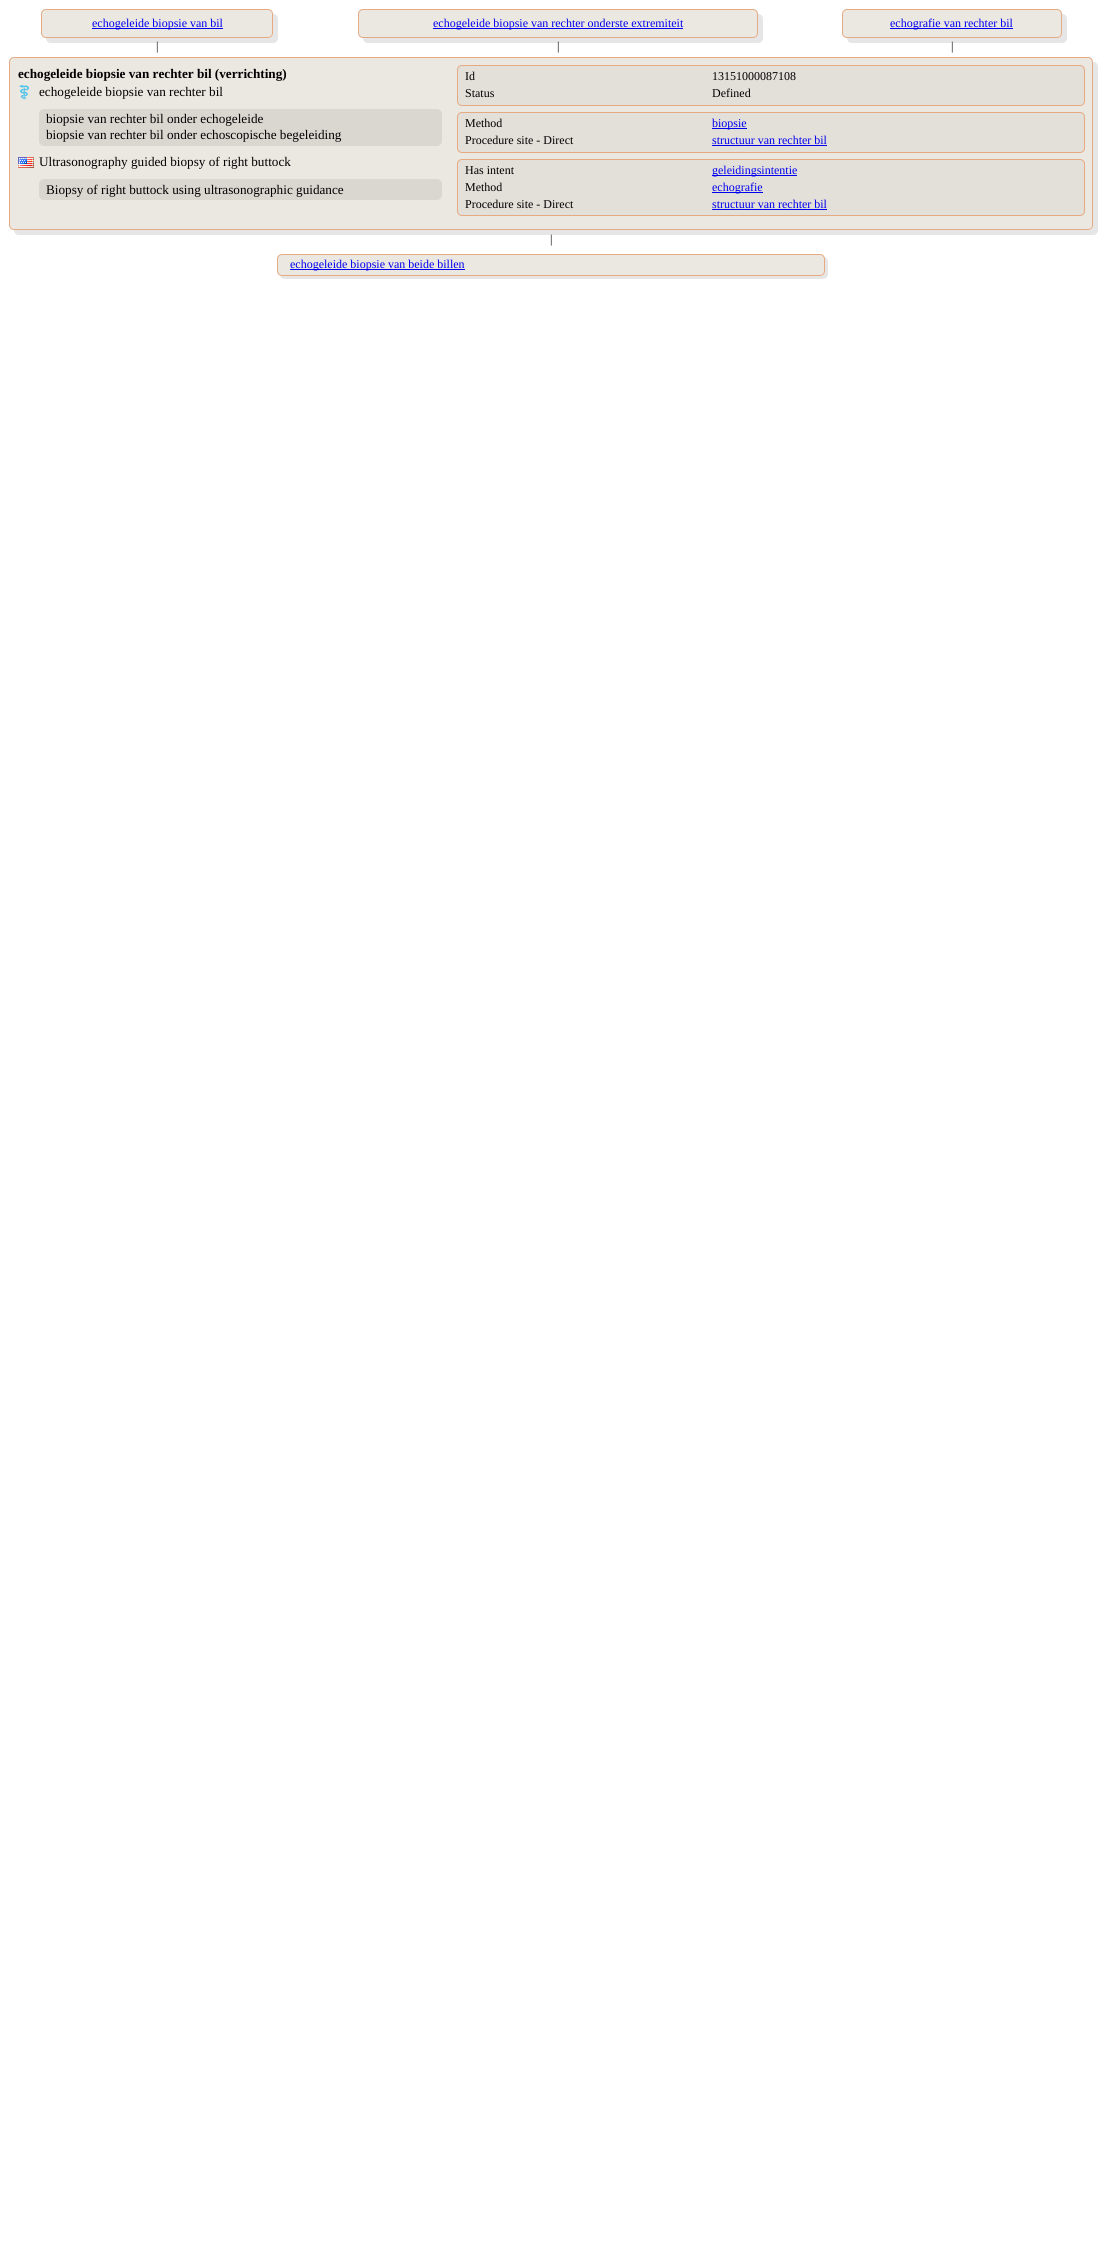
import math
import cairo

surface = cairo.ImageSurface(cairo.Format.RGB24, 1102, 2250)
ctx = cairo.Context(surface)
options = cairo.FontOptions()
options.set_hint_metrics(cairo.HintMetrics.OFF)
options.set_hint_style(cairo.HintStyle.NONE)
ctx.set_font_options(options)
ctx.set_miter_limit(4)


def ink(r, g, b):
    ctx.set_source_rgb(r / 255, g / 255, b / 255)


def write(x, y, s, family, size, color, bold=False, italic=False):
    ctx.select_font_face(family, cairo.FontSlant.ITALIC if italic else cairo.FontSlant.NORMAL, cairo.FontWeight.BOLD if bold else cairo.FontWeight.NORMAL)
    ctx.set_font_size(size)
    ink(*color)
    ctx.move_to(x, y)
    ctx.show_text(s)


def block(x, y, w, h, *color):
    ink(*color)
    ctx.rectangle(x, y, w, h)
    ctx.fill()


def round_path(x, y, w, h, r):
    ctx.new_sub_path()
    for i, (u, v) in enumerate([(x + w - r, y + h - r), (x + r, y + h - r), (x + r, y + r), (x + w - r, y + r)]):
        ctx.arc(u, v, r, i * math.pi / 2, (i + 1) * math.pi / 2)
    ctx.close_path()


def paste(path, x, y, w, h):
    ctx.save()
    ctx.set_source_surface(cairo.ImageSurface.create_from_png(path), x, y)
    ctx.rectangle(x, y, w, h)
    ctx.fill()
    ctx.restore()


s1 = dict(family="Liberation Serif", size=12, color=(0, 0, 238))
s2 = dict(family="Liberation Serif", size=12, color=(0, 0, 0))
s3 = dict(family="Liberation Serif", size=13.2, color=(0, 0, 0), bold=True)
s4 = dict(family="Liberation Serif", size=13.2, color=(0, 0, 0))

ink(255, 255, 255)
ctx.paint()
ink(230, 230, 230)
ctx.new_path()
ctx.move_to(46, 38)
ctx.curve_to(46, 41, 48, 43, 51, 43)
ctx.line_to(273, 43)
ctx.curve_to(276, 43, 278, 41, 278, 38)
ctx.line_to(278, 19)
ctx.curve_to(278, 16, 276, 14, 273, 14)
ctx.line_to(273, 33)
ctx.curve_to(273, 36, 271, 38, 268, 38)
ctx.close_path()
ctx.fill()
ink(235, 231, 225)
round_path(41.5, 9.5, 231, 28, 4.5)
ctx.fill_preserve()
ink(230, 170, 131)
ctx.set_line_width(1)
ctx.stroke()
block(92, 28, 131, 1, 0, 0, 238)
write(92, 27, "echogeleide biopsie van bil", **s1)
ink(230, 230, 230)
ctx.new_path()
ctx.move_to(363, 38)
ctx.curve_to(363, 41, 365, 43, 368, 43)
ctx.line_to(758, 43)
ctx.curve_to(761, 43, 763, 41, 763, 38)
ctx.line_to(763, 19)
ctx.curve_to(763, 16, 761, 14, 758, 14)
ctx.line_to(758, 33)
ctx.curve_to(758, 36, 756, 38, 753, 38)
ctx.close_path()
ctx.fill()
ink(235, 231, 225)
round_path(358.5, 9.5, 399, 28, 4.5)
ctx.fill_preserve()
ink(230, 170, 131)
ctx.stroke()
block(433, 28, 250, 1, 0, 0, 238)
write(433, 27, "echogeleide biopsie van rechter onderste extremiteit", **s1)
ink(230, 230, 230)
ctx.new_path()
ctx.move_to(847, 38)
ctx.curve_to(847, 41, 849, 43, 852, 43)
ctx.line_to(1062, 43)
ctx.curve_to(1065, 43, 1067, 41, 1067, 38)
ctx.line_to(1067, 19)
ctx.curve_to(1067, 16, 1065, 14, 1062, 14)
ctx.line_to(1062, 33)
ctx.curve_to(1062, 36, 1060, 38, 1057, 38)
ctx.close_path()
ctx.fill()
ink(235, 231, 225)
round_path(842.5, 9.5, 219, 28, 4.5)
ctx.fill_preserve()
ink(230, 170, 131)
ctx.stroke()
block(890, 28, 123, 1, 0, 0, 238)
write(890, 27, "echografie van rechter bil", **s1)
write(156, 50, "|", **s2)
write(557, 50, "|", **s2)
write(951, 50, "|", **s2)
ink(230, 230, 230)
ctx.new_path()
ctx.move_to(14, 230)
ctx.curve_to(14, 233, 16, 235, 19, 235)
ctx.line_to(1093, 235)
ctx.curve_to(1096, 235, 1098, 233, 1098, 230)
ctx.line_to(1098, 67)
ctx.curve_to(1098, 64, 1096, 62, 1093, 62)
ctx.line_to(1093, 225)
ctx.curve_to(1093, 228, 1091, 230, 1088, 230)
ctx.close_path()
ctx.fill()
ink(235, 231, 225)
round_path(9.5, 57.5, 1083, 172, 4.5)
ctx.fill_preserve()
ink(230, 170, 131)
ctx.stroke()
write(18, 78, "echogeleide biopsie van rechter bil (verrichting)", **s3)
paste("pic1.png", 19, 85, 10, 15)
write(39, 96, "echogeleide biopsie van rechter bil", **s4)
ink(218, 214, 208)
round_path(39, 109, 403, 37, 5)
ctx.fill()
write(46, 123, "biopsie van rechter bil onder echogeleide", **s4)
write(46, 139, "biopsie van rechter bil onder echoscopische begeleiding", **s4)
paste("pic2.png", 18, 157, 16, 11)
write(39, 166, "Ultrasonography guided biopsy of right buttock", **s4)
ink(218, 214, 208)
round_path(39, 179, 403, 21, 5)
ctx.fill()
write(46, 194, "Biopsy of right buttock using ultrasonographic guidance", **s4)
ink(227, 223, 217)
round_path(457.5, 65.5, 627, 40, 4.5)
ctx.fill_preserve()
ink(230, 170, 131)
ctx.stroke()
write(465, 80, "Id", **s2)
write(712, 80, "13151000087108", **s2)
write(465, 97, "Status", **s2)
write(712, 97, "Defined", **s2)
ink(227, 223, 217)
round_path(457.5, 112.5, 627, 40, 4.5)
ctx.fill_preserve()
ink(230, 170, 131)
ctx.stroke()
write(465, 127, "Method", **s2)
block(712, 128, 35, 1, 0, 0, 238)
write(712, 127, "biopsie", **s1)
write(465, 144, "Procedure site - Direct", **s2)
write(712, 144, "structuur van rechter bil", **s1)
block(712, 145, 115, 1, 0, 0, 238)
ink(227, 223, 217)
round_path(457.5, 159.5, 627, 56, 4.5)
ctx.fill_preserve()
ink(230, 170, 131)
ctx.stroke()
write(465, 174, "Has intent", **s2)
block(712, 175, 85, 1, 0, 0, 238)
write(712, 174, "geleidingsintentie", **s1)
write(465, 191, "Method", **s2)
block(712, 192, 51, 1, 0, 0, 238)
write(712, 191, "echografie", **s1)
write(465, 208, "Procedure site - Direct", **s2)
write(712, 208, "structuur van rechter bil", **s1)
block(712, 209, 115, 1, 0, 0, 238)
write(550, 243, "|", **s2)
ink(230, 230, 230)
ctx.new_path()
ctx.move_to(280, 276)
ctx.curve_to(281, 278, 283, 279, 285, 279)
ctx.line_to(823, 279)
ctx.curve_to(826, 279, 828, 277, 828, 274)
ctx.line_to(828, 262)
ctx.curve_to(828, 260, 827, 258, 825, 257)
ctx.line_to(825, 265)
ctx.curve_to(825, 269, 826, 276, 820, 276)
ctx.close_path()
ctx.fill()
ink(235, 231, 225)
round_path(277.5, 254.5, 547, 21, 4.5)
ctx.fill_preserve()
ink(230, 170, 131)
ctx.stroke()
block(290, 269, 175, 1, 0, 0, 238)
write(290, 268, "echogeleide biopsie van beide billen", **s1)
surface.write_to_png("screenshot.png")
